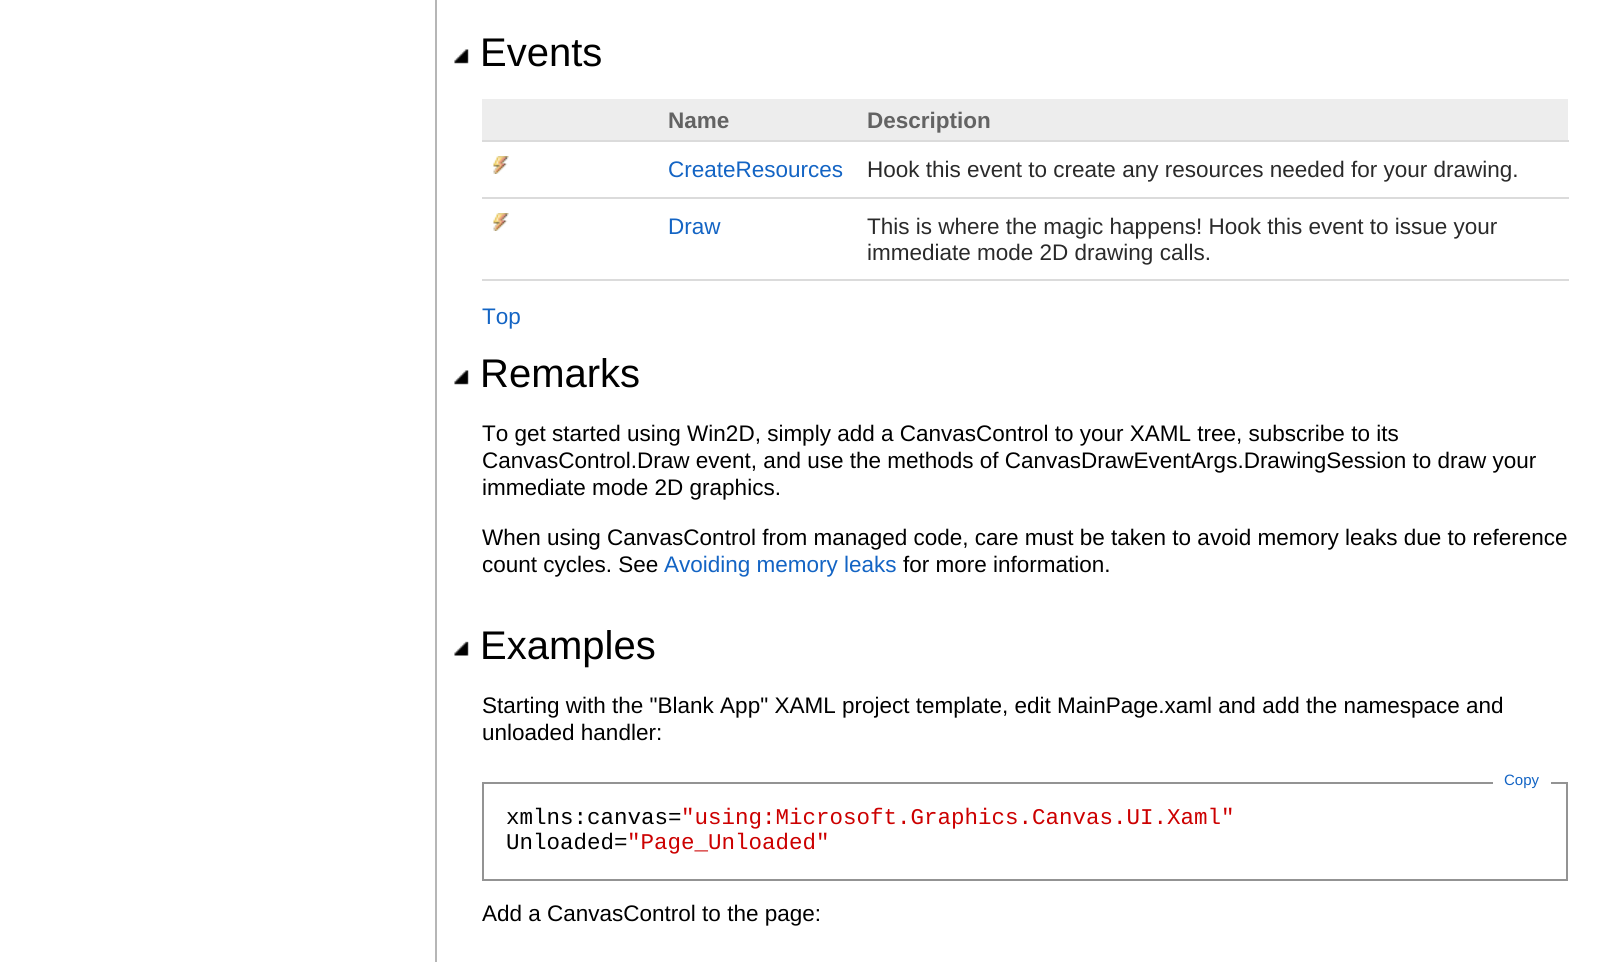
import math
import cairo

surface = cairo.ImageSurface(cairo.Format.RGB24, 1612, 962)
ctx = cairo.Context(surface)
options = cairo.FontOptions()
options.set_hint_metrics(cairo.HintMetrics.OFF)
options.set_hint_style(cairo.HintStyle.NONE)
ctx.set_font_options(options)
ctx.set_miter_limit(4)


def ink(r, g, b):
    ctx.set_source_rgb(r / 255, g / 255, b / 255)


def write(x, y, s, family, size, color, bold=False, italic=False):
    ctx.select_font_face(family, cairo.FontSlant.ITALIC if italic else cairo.FontSlant.NORMAL, cairo.FontWeight.BOLD if bold else cairo.FontWeight.NORMAL)
    ctx.set_font_size(size)
    ink(*color)
    ctx.move_to(x, y)
    ctx.show_text(s)


def block(x, y, w, h, *color):
    ink(*color)
    ctx.rectangle(x, y, w, h)
    ctx.fill()


def paste(path, x, y, w, h):
    ctx.save()
    ctx.set_source_surface(cairo.ImageSurface.create_from_png(path), x, y)
    ctx.rectangle(x, y, w, h)
    ctx.fill()
    ctx.restore()


s1 = dict(family="Liberation Sans", size=40, color=(0, 0, 0))
s2 = dict(family="Liberation Sans", size=22.5, color=(99, 99, 99), bold=True)
s3 = dict(family="Liberation Sans", size=22.5, color=(19, 100, 196))
s4 = dict(family="Liberation Sans", size=22.5, color=(42, 42, 42))
s5 = dict(family="Liberation Sans", size=22.5, color=(0, 0, 0))
s6 = dict(family="Liberation Sans", size=15, color=(19, 100, 196))
s7 = dict(family="Liberation Mono", size=22.5, color=(0, 0, 0))
s8 = dict(family="Liberation Mono", size=22.5, color=(204, 0, 0))

ink(255, 255, 255)
ctx.paint()
block(435, 0, 2, 962, 182, 182, 182)
paste("pic1.png", 454, 49, 15, 15)
write(480, 66, "Events", **s1)
block(482, 99, 1086, 41, 237, 237, 237)
write(668, 128, "Name", **s2)
block(482, 140, 1087, 2, 219, 219, 219)
write(867, 128, "Description", **s2)
paste("pic2.png", 493, 156, 16, 18)
write(668, 177, "CreateResources", **s3)
block(482, 197, 1087, 2, 219, 219, 219)
write(867, 177, "Hook this event to create any resources needed for your drawing.", **s4)
paste("pic2.png", 493, 213, 16, 18)
write(668, 234, "Draw", **s3)
block(482, 279, 1087, 2, 219, 219, 219)
write(867, 234, "This is where the magic happens! Hook this event to issue your", **s4)
write(867, 260, "immediate mode 2D drawing calls.", **s4)
write(482, 324, "Top", **s3)
paste("pic1.png", 454, 370, 15, 15)
write(480, 387, "Remarks", **s1)
write(482, 441, "To get started using Win2D, simply add a CanvasControl to your XAML tree, subscribe to its", **s5)
write(482, 468, "CanvasControl.Draw event, and use the methods of CanvasDrawEventArgs.DrawingSession to draw your", **s5)
write(482, 495, "immediate mode 2D graphics.", **s5)
write(482, 545, "When using CanvasControl from managed code, care must be taken to avoid memory leaks due to reference", **s5)
write(482, 572, "count cycles. See", **s5)
write(664, 572, "Avoiding memory leaks", **s3)
write(903, 572, "for more information.", **s5)
paste("pic3.png", 454, 641, 15, 15)
write(480, 659, "Examples", **s1)
write(482, 713, "Starting with the \"Blank App\" XAML project template, edit MainPage.xaml and add the namespace and", **s5)
write(482, 740, "unloaded handler:", **s5)
ctx.rectangle(483, 783, 1084, 97)
ink(147, 147, 147)
ctx.stroke()
block(1493, 782, 58, 2, 255, 255, 255)
write(1504, 785, "Copy", **s6)
write(506, 824, "xmlns:canvas=", **s7)
write(681, 824, "\"using:Microsoft.Graphics.Canvas.UI.Xaml\"", **s8)
write(506, 849, "Unloaded=", **s7)
write(627, 849, "\"Page_Unloaded\"", **s8)
write(482, 921, "Add a CanvasControl to the page:", **s5)
surface.write_to_png("screenshot.png")
